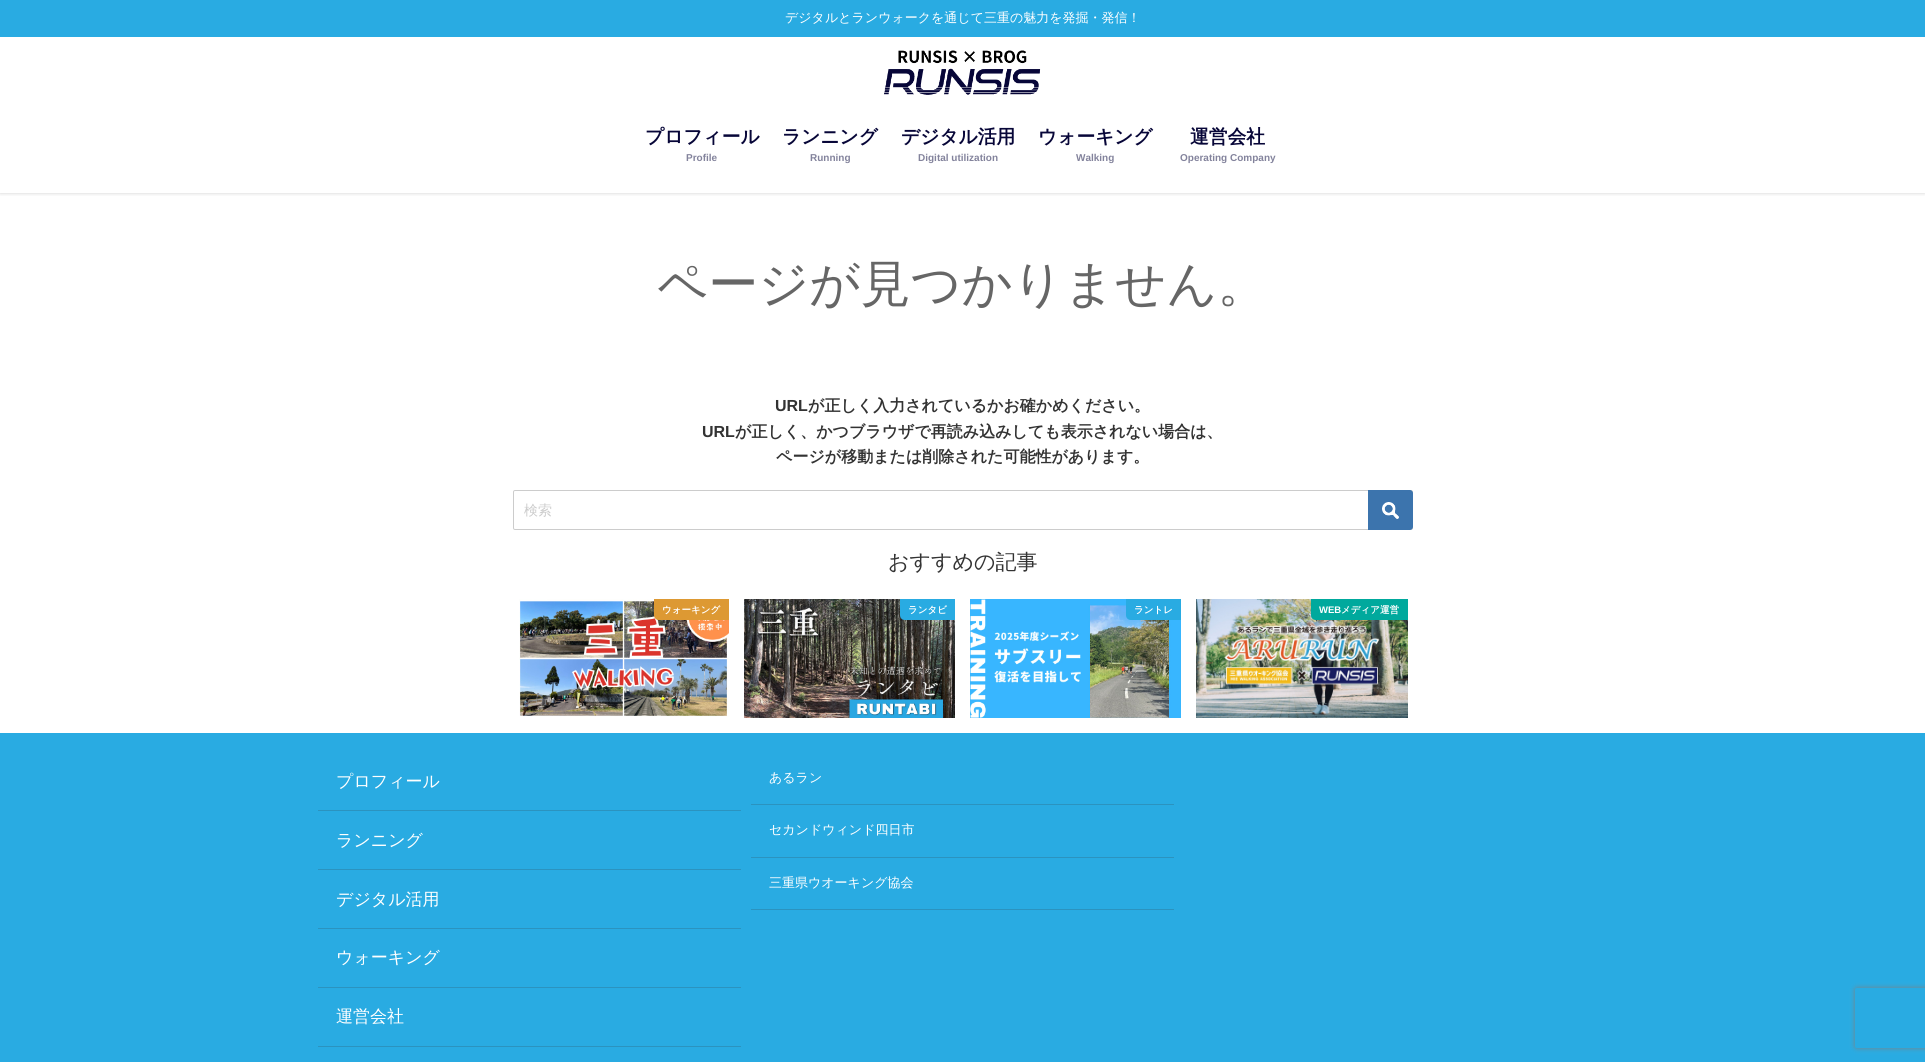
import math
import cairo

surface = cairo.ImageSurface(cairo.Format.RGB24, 1925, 1062)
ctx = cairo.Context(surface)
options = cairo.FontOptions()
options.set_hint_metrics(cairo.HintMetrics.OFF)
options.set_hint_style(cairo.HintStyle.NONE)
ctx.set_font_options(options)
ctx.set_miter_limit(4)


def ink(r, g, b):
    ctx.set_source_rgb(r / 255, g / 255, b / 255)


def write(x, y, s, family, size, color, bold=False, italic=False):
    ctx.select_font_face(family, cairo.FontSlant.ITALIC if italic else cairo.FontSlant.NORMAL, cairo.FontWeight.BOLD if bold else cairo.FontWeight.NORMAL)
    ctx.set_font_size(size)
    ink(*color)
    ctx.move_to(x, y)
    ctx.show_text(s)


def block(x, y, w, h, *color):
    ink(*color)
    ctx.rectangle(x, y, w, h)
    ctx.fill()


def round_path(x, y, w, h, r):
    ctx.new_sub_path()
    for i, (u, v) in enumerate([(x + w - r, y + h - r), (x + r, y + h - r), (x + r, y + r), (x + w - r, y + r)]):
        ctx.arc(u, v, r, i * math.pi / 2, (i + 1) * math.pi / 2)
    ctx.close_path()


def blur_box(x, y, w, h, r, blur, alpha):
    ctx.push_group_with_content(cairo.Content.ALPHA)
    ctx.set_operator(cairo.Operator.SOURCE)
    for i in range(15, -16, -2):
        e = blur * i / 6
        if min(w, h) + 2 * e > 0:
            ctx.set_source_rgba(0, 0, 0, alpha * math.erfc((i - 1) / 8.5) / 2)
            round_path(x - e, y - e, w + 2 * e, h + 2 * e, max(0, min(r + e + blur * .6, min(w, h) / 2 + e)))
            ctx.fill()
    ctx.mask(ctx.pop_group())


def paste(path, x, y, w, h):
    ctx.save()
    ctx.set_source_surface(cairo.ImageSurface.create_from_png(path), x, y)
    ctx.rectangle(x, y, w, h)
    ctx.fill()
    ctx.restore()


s1 = dict(family="WenQuanYi Zen Hei Medium", size=13, color=(255, 255, 255))
s2 = dict(family="WenQuanYi Zen Hei", size=18.75, color=(7, 6, 56), bold=True)
s3 = dict(family="Liberation Sans", size=10, color=(131, 131, 156), bold=True)
s4 = dict(family="WenQuanYi Zen Hei Medium", size=50, color=(102, 102, 102))
s5 = dict(family="Liberation Sans", size=16, color=(51, 51, 51), bold=True)
s6 = dict(family="WenQuanYi Zen Hei", size=16, color=(51, 51, 51), bold=True)
s7 = dict(family="WenQuanYi Zen Hei Medium", size=14, color=(204, 204, 204))
s8 = dict(family="WenQuanYi Zen Hei Medium", size=21, color=(51, 51, 51))
s9 = dict(family="WenQuanYi Zen Hei", size=9.5, color=(255, 255, 255), bold=True)
s10 = dict(family="Liberation Sans", size=9.5, color=(255, 255, 255), bold=True)
s11 = dict(family="WenQuanYi Zen Hei Medium", size=17, color=(255, 255, 255))

ink(255, 255, 255)
ctx.paint()
ctx.save()
ctx.rectangle(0, 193, 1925, 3)
ctx.clip()
ink(0, 0, 0)
blur_box(0, 0, 1925, 193, 0, 2, 0.2)
ctx.restore()
block(0, 0, 1925, 37, 41, 171, 226)
write(785, 22, "デジタルとランウォークを通じて三重の魅力を発掘・発信！", **s1)
paste("pic1.png", 884, 50, 157, 45)
write(645, 143, "プロフィール", **s2)
write(686, 161, "Profile", **s3)
write(782, 143, "ランニング", **s2)
write(810, 161, "Running", **s3)
write(901, 143, "デジタル活用", **s2)
write(918, 161, "Digital utilization", **s3)
write(1038, 143, "ウォーキング", **s2)
write(1076, 161, "Walking", **s3)
write(1190, 143, "運営会社", **s2)
write(1180, 161, "Operating Company", **s3)
write(657, 301, "ページが見つかりません。", **s4)
write(775, 411, "URL", **s5)
write(808, 411, "が正しく入力されているかお確かめください。", **s6)
write(702, 437, "URL", **s5)
write(735, 437, "が正しく、かつブラウザで再読み込みしても表示されない場合は、", **s6)
write(776, 462, "ページが移動または削除された可能性があります。", **s6)
round_path(513.5, 490.5, 899, 39, 1.5)
ink(204, 204, 204)
ctx.set_line_width(1)
ctx.stroke()
write(524, 515, "検索", **s7)
ink(60, 116, 173)
ctx.new_path()
ctx.move_to(1368, 490)
ctx.line_to(1410, 490)
ctx.curve_to(1411.5, 490, 1413, 491.5, 1413, 493)
ctx.line_to(1413, 527)
ctx.curve_to(1413, 528.5, 1411.5, 530, 1410, 530)
ctx.line_to(1368, 530)
ctx.close_path()
ctx.fill()
paste("pic2.png", 1382, 502, 17, 17)
write(888, 569, "おすすめの記事", **s8)
paste("pic3.png", 519, 599, 210, 118)
ink(221, 153, 51)
ctx.new_path()
ctx.move_to(654, 599)
ctx.line_to(729, 599)
ctx.line_to(729, 620)
ctx.line_to(659, 620)
ctx.curve_to(656, 620, 654, 618, 654, 615)
ctx.close_path()
ctx.fill()
write(662, 613, "ウォーキング", **s9)
paste("pic4.png", 744, 599, 211, 119)
ink(41, 171, 226)
ctx.new_path()
ctx.move_to(900, 599)
ctx.line_to(955, 599)
ctx.line_to(955, 620)
ctx.line_to(905, 620)
ctx.curve_to(902, 620, 900, 618, 900, 615)
ctx.close_path()
ctx.fill()
write(908, 613, "ランタビ", **s9)
paste("pic5.png", 970, 599, 211, 119)
ink(41, 171, 226)
ctx.new_path()
ctx.move_to(1126, 599)
ctx.line_to(1181, 599)
ctx.line_to(1181, 620)
ctx.line_to(1131, 620)
ctx.curve_to(1128, 620, 1126, 618, 1126, 615)
ctx.close_path()
ctx.fill()
write(1134, 613, "ラントレ", **s9)
paste("pic6.png", 1196, 599, 212, 119)
ink(0, 169, 157)
ctx.new_path()
ctx.move_to(1311, 599)
ctx.line_to(1408, 599)
ctx.line_to(1408, 620)
ctx.line_to(1316, 620)
ctx.curve_to(1313, 620, 1311, 618, 1311, 615)
ctx.close_path()
ctx.fill()
write(1319, 613, "WEB", **s10)
write(1341, 613, "メディア運営", **s9)
block(0, 733, 1925, 329, 41, 171, 226)
block(318, 810, 423, 1, 43, 147, 191)
write(336, 787, "プロフィール", **s11)
block(318, 869, 423, 1, 43, 147, 191)
write(336, 846, "ランニング", **s11)
block(318, 928, 423, 1, 43, 147, 191)
write(336, 905, "デジタル活用", **s11)
block(318, 987, 423, 1, 43, 147, 191)
write(336, 963, "ウォーキング", **s11)
block(318, 1046, 423, 1, 43, 147, 191)
write(336, 1022, "運営会社", **s11)
block(751, 804, 423, 1, 43, 147, 191)
write(769, 782, "あるラン", **s1)
block(751, 857, 423, 1, 43, 147, 191)
write(769, 834, "セカンドウィンド四日市", **s1)
block(751, 909, 423, 1, 43, 147, 191)
write(769, 887, "三重県ウオーキング協会", **s1)
ctx.save()
ctx.set_fill_rule(cairo.FillRule.EVEN_ODD)
ctx.new_path()
ctx.move_to(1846, 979)
ctx.line_to(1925, 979)
ctx.line_to(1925, 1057)
ctx.line_to(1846, 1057)
ctx.close_path()
ctx.move_to(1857, 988)
ctx.line_to(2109, 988)
ctx.curve_to(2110, 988, 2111, 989, 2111, 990)
ctx.line_to(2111, 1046)
ctx.curve_to(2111, 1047, 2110, 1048, 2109, 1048)
ctx.line_to(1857, 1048)
ctx.curve_to(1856, 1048, 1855, 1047, 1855, 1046)
ctx.line_to(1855, 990)
ctx.curve_to(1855, 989, 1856, 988, 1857, 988)
ctx.close_path()
ctx.clip()
ink(128, 128, 128)
blur_box(1855, 988, 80, 60, 2, 2.5, 1)
ctx.restore()
surface.write_to_png("screenshot.png")
